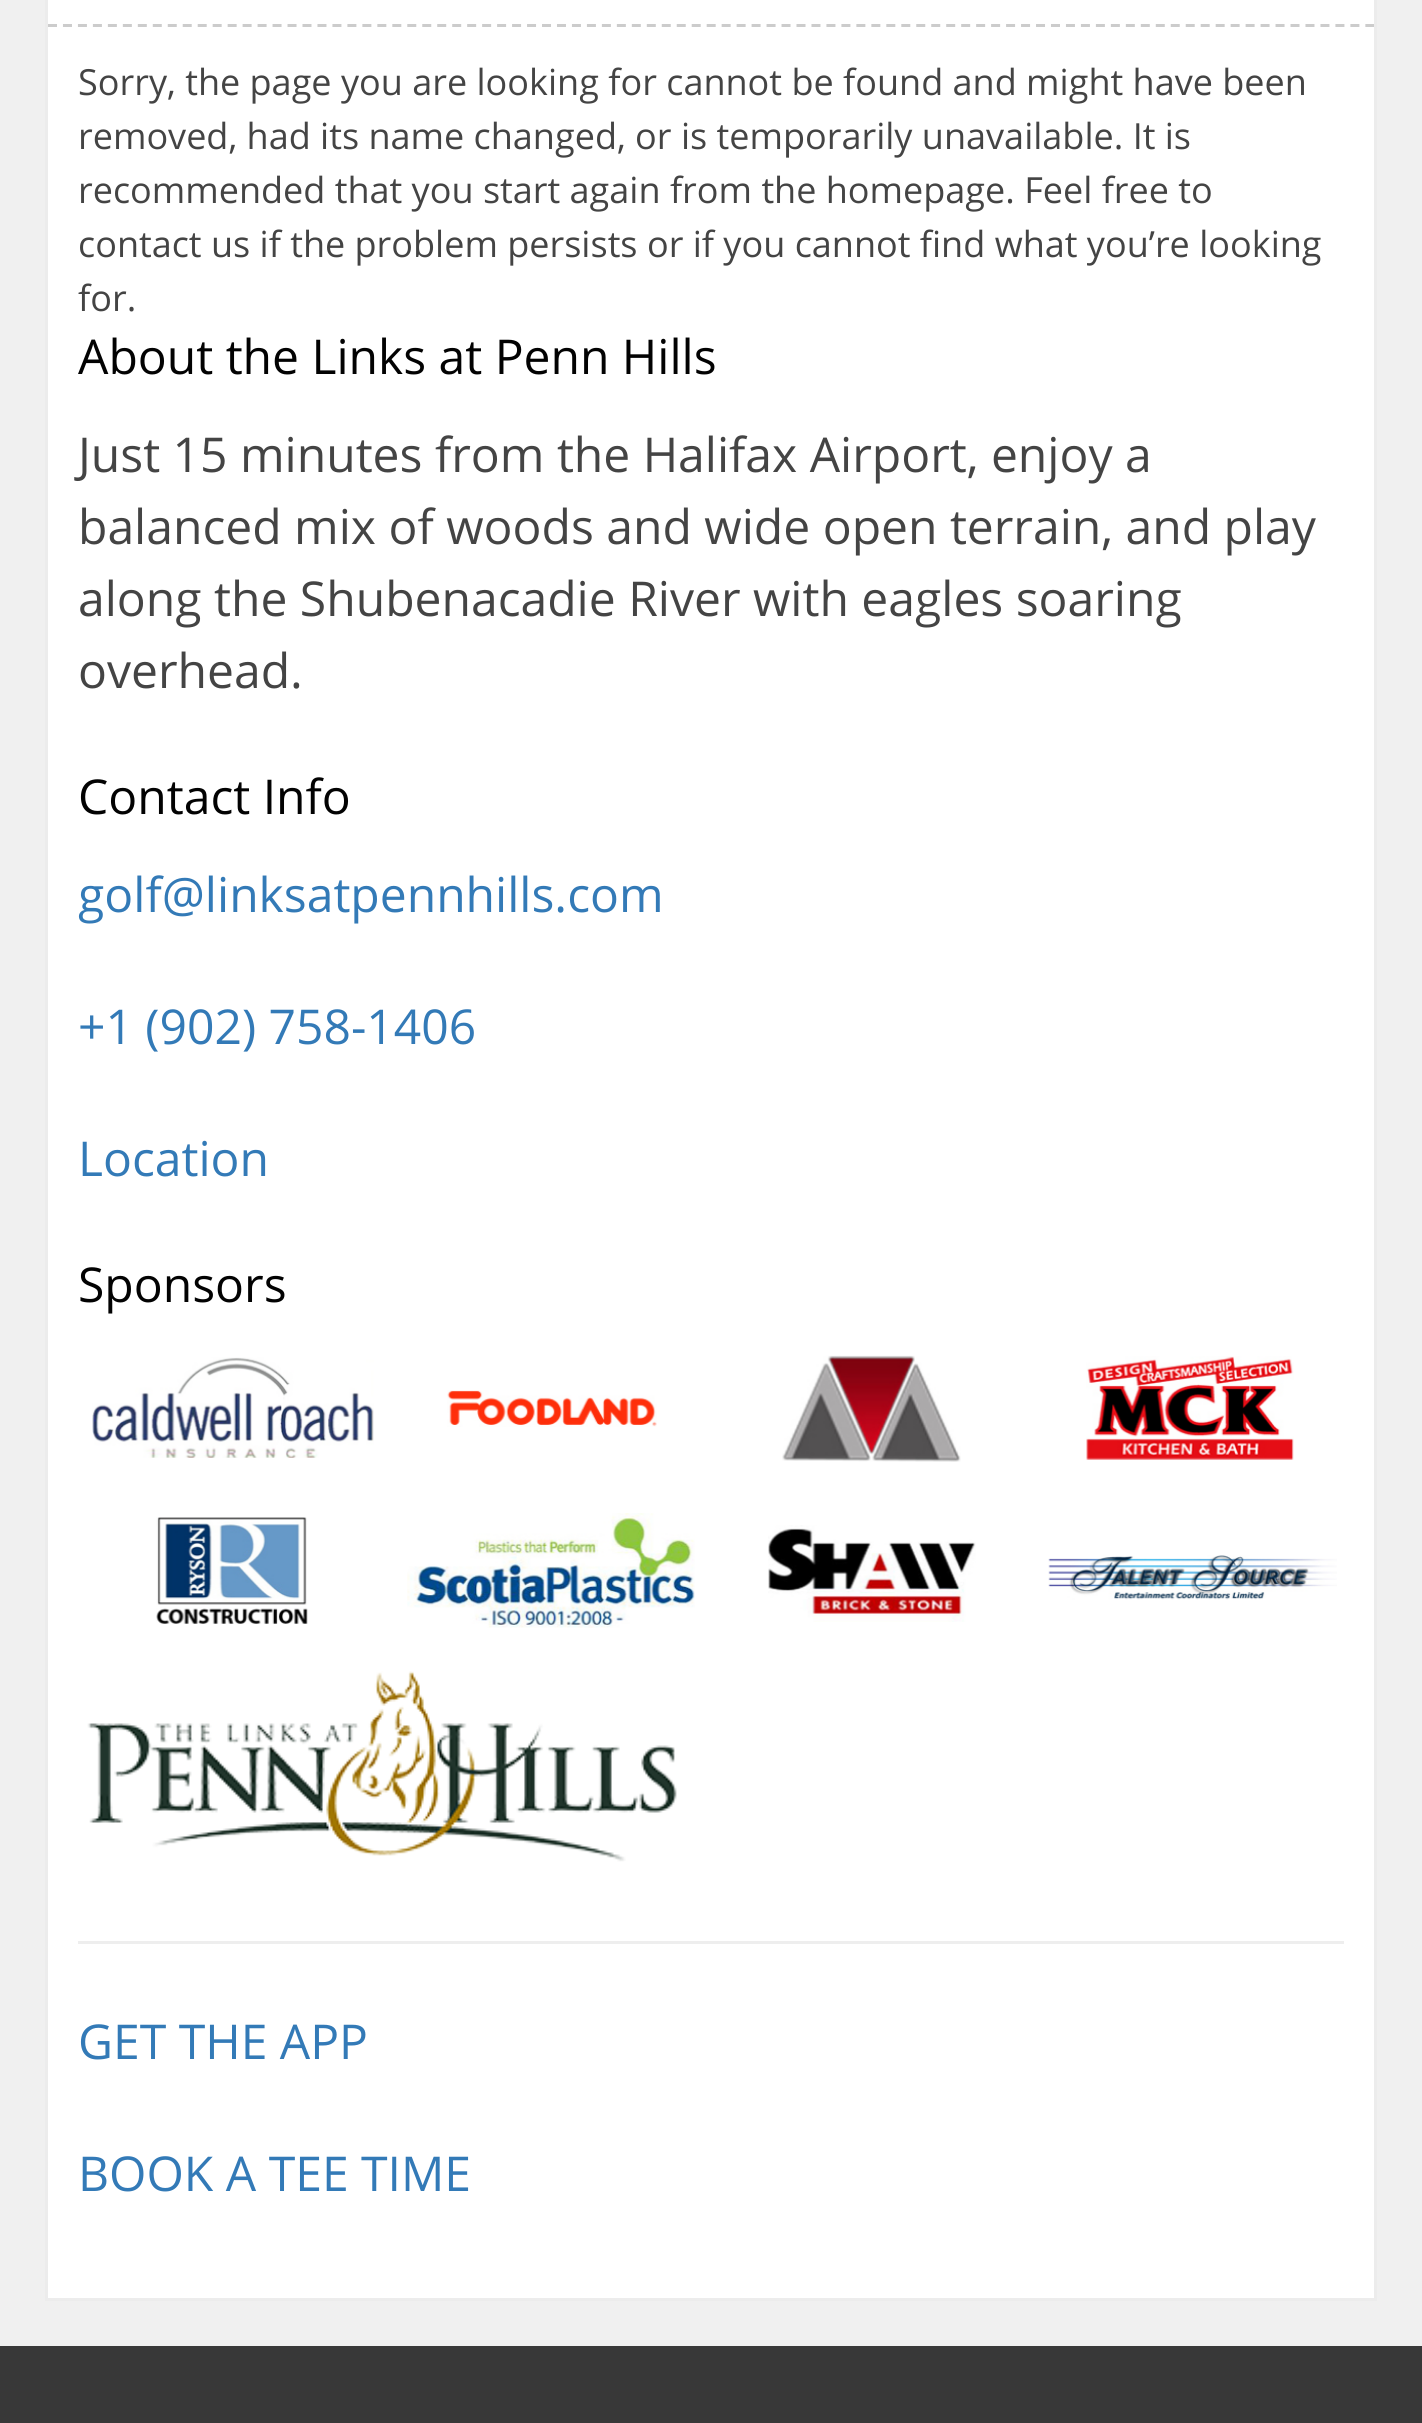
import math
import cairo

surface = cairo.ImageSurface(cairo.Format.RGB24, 1422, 2423)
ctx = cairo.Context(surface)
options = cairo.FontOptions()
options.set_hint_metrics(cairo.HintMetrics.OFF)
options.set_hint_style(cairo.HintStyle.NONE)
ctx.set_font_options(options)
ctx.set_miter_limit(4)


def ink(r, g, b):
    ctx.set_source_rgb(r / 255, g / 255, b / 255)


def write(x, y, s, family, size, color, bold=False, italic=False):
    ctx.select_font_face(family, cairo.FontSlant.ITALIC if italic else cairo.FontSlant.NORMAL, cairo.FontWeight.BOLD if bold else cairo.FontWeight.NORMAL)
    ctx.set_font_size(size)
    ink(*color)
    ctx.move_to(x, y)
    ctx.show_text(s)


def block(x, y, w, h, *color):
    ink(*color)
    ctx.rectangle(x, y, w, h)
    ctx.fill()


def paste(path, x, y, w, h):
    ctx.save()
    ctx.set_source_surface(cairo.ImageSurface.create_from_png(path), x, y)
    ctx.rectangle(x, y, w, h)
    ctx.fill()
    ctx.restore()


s1 = dict(family="Open Sans", size=36, color=(68, 68, 68))
s2 = dict(family="Open Sans", size=48, color=(2, 2, 2))
s3 = dict(family="Open Sans", size=48, color=(68, 68, 68))
s4 = dict(family="Open Sans", size=48, color=(51, 122, 183))

ink(240, 240, 240)
ctx.paint()
block(48, 0, 1326, 2298, 255, 255, 255)
block(1374, 0, 3, 2301, 236, 236, 236)
block(45, 2298, 1332, 3, 236, 236, 236)
block(45, 0, 3, 2301, 236, 236, 236)
ctx.new_path()
ctx.move_to(48, 25.5)
ctx.line_to(1374, 25.5)
ink(204, 204, 204)
ctx.set_line_width(3)
ctx.set_dash([9, 5.97])
ctx.stroke()
write(78, 95, "Sorry, the page you are looking for cannot be found and might have been", **s1)
write(78, 149, "removed, had its name changed, or is temporarily unavailable. It is", **s1)
write(78, 203, "recommended that you start again from the homepage. Feel free to", **s1)
write(78, 257, "contact us if the problem persists or if you cannot find what you’re looking", **s1)
write(78, 311, "for.", **s1)
write(78, 374, "About the Links at Penn Hills", **s2)
write(78, 472, "Just 15 minutes from the Halifax Airport, enjoy a", **s3)
write(78, 544, "balanced mix of woods and wide open terrain, and play", **s3)
write(78, 616, "along the Shubenacadie River with eagles soaring", **s3)
write(78, 688, "overhead.", **s3)
write(78, 814, "Contact Info", **s2)
write(78, 912, "golf@linksatpennhills.com", **s4)
write(78, 1044, "+1 (902) 758-1406", **s4)
write(78, 1176, "Location", **s4)
write(78, 1302, "Sponsors", **s2)
paste("pic1.png", 92, 1357, 282, 101)
paste("pic2.png", 447, 1390, 210, 37)
paste("pic3.png", 782, 1355, 179, 107)
paste("pic4.png", 1086, 1356, 208, 104)
paste("pic5.png", 156, 1517, 152, 107)
paste("pic6.png", 407, 1513, 288, 115)
paste("pic7.png", 768, 1525, 208, 97)
paste("pic8.png", 1048, 1555, 289, 45)
paste("pic9.png", 87, 1671, 590, 191)
block(78, 1941, 1266, 3, 238, 238, 238)
write(78, 2059, "GET THE APP", **s4)
write(78, 2191, "BOOK A TEE TIME", **s4)
block(0, 2346, 1422, 77, 56, 56, 56)
surface.write_to_png("screenshot.png")
